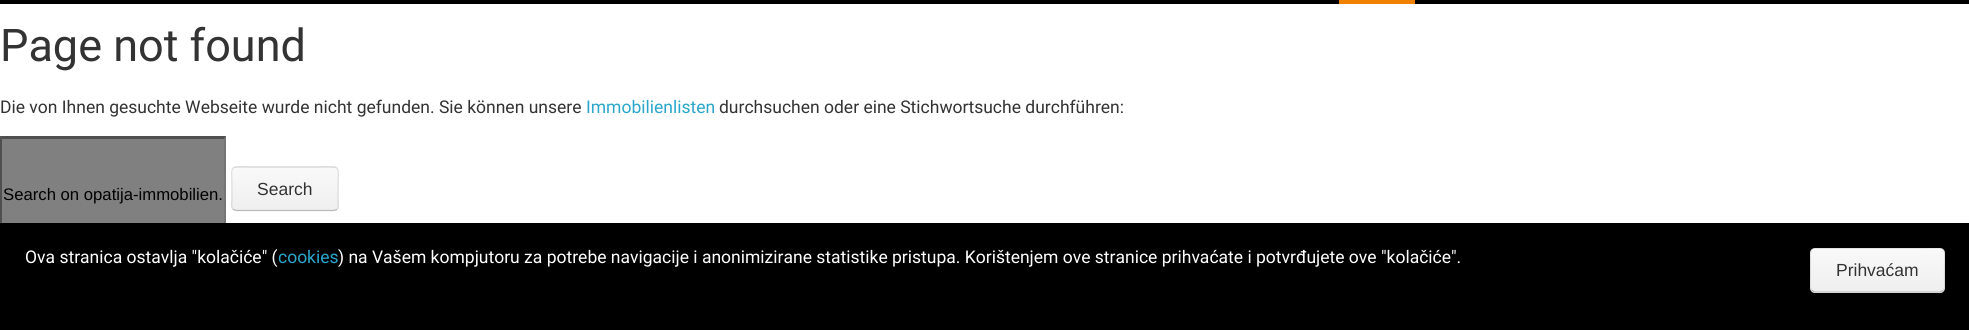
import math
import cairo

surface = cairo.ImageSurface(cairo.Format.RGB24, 1969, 330)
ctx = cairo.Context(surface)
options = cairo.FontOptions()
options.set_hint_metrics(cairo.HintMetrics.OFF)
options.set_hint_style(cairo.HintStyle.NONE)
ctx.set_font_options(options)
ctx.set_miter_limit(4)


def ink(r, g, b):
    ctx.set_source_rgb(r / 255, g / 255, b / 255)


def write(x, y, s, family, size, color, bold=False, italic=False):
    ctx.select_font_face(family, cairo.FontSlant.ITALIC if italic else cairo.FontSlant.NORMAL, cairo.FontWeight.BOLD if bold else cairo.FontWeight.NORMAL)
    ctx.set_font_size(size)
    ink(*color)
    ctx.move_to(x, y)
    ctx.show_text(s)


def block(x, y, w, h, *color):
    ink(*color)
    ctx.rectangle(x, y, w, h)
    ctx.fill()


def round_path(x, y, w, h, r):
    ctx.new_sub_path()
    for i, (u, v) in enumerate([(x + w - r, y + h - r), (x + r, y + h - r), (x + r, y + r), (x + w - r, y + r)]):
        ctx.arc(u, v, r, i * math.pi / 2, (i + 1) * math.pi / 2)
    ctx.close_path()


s1 = dict(family="Roboto", size=45, color=(51, 51, 51))
s2 = dict(family="Roboto", size=17.5, color=(51, 51, 51))
s3 = dict(family="Roboto", size=17.5, color=(43, 166, 203))
s4 = dict(family="Liberation Sans", size=16.7, color=(0, 0, 0))
s5 = dict(family="Liberation Sans", size=17.5, color=(51, 51, 51))
s6 = dict(family="Roboto", size=17.5, color=(255, 255, 255))

ink(255, 255, 255)
ctx.paint()
block(0, 0, 1969, 4, 0, 0, 0)
block(1339, 0, 76, 4, 240, 128, 0)
write(0, 61, "Page not found", **s1)
write(0, 113, "Die von Ihnen gesuchte Webseite wurde nicht gefunden. Sie können unsere", **s2)
write(586, 113, "Immobilienlisten", **s3)
write(719, 113, "durchsuchen oder eine Stichwortsuche durchführen:", **s2)
block(0, 136, 226, 87, 128, 128, 128)
ink(79, 79, 79)
ctx.new_path()
ctx.move_to(0, 136)
ctx.line_to(226, 136)
ctx.line_to(224, 139)
ctx.line_to(2, 139)
ctx.close_path()
ctx.fill()
ink(118, 118, 118)
ctx.new_path()
ctx.move_to(226, 136)
ctx.line_to(226, 252)
ctx.line_to(224, 250)
ctx.line_to(224, 139)
ctx.close_path()
ctx.fill()
ink(79, 79, 79)
ctx.new_path()
ctx.move_to(0, 252)
ctx.line_to(0, 136)
ctx.line_to(2, 139)
ctx.line_to(2, 250)
ctx.close_path()
ctx.fill()
write(3, 200, "Search on opatija-immobilien.", **s4)
ctx.save()
round_path(231, 166, 108, 45, 5)
ctx.clip()
gradient = cairo.LinearGradient(285, 125, 285, 168)
gradient.add_color_stop_rgba(0, 0.976, 0.976, 0.976, 1)
gradient.add_color_stop_rgba(1, 0.937, 0.937, 0.937, 1)
ctx.set_source(gradient)
ctx.rectangle(231, 166, 108, 2)
ctx.fill()
gradient = cairo.LinearGradient(285, 168, 285, 210)
gradient.add_color_stop_rgba(0, 0.976, 0.976, 0.976, 1)
gradient.add_color_stop_rgba(1, 0.937, 0.937, 0.937, 1)
ctx.set_source(gradient)
ctx.rectangle(231, 168, 108, 42)
ctx.fill()
gradient = cairo.LinearGradient(285, 210, 285, 253)
gradient.add_color_stop_rgba(0, 0.976, 0.976, 0.976, 1)
gradient.add_color_stop_rgba(1, 0.937, 0.937, 0.937, 1)
ctx.set_source(gradient)
ctx.rectangle(231, 210, 108, 1)
ctx.fill()
ctx.restore()
ctx.new_path()
ctx.move_to(337, 209.5)
ctx.line_to(334, 210.5)
ctx.line_to(236, 210.5)
ctx.line_to(233, 209.5)
ctx.set_source_rgba(0, 0, 0, 0.25)
ctx.set_line_width(1.2)
ctx.stroke()
ctx.new_path()
ctx.move_to(233, 209.5)
ctx.curve_to(231, 207, 232, 203, 232, 200.5)
ctx.line_to(232, 189)
ctx.curve_to(232, 164, 227.5, 167, 252.5, 167)
ctx.line_to(317.5, 167)
ctx.curve_to(342.5, 167, 338, 164, 338, 189)
ctx.line_to(338, 200.5)
ctx.curve_to(338, 203, 339, 207, 337, 209.5)
ctx.set_source_rgba(0, 0, 0, 0.1)
ctx.stroke()
write(257, 195, "Search", **s5)
block(0, 223, 1969, 107, 0, 0, 0)
write(25, 263, "Ova stranica ostavlja \"kolačiće\" (", **s6)
write(278, 263, "cookies", **s3)
write(338, 263, ") na Vašem kompjutoru za potrebe navigacije i anonimizirane statistike pristupa. Korištenjem ove stranice prihvaćate i potvrđujete ove \"kolačiće\".", **s6)
ctx.save()
round_path(1810, 248, 135, 45, 5)
ctx.clip()
gradient = cairo.LinearGradient(1878, 206, 1878, 249)
gradient.add_color_stop_rgba(0, 0.976, 0.976, 0.976, 1)
gradient.add_color_stop_rgba(1, 0.937, 0.937, 0.937, 1)
ctx.set_source(gradient)
ctx.rectangle(1810, 248, 135, 1)
ctx.fill()
gradient = cairo.LinearGradient(1878, 249, 1878, 291)
gradient.add_color_stop_rgba(0, 0.976, 0.976, 0.976, 1)
gradient.add_color_stop_rgba(1, 0.937, 0.937, 0.937, 1)
ctx.set_source(gradient)
ctx.rectangle(1810, 249, 135, 42)
ctx.fill()
gradient = cairo.LinearGradient(1878, 291, 1878, 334)
gradient.add_color_stop_rgba(0, 0.976, 0.976, 0.976, 1)
gradient.add_color_stop_rgba(1, 0.937, 0.937, 0.937, 1)
ctx.set_source(gradient)
ctx.rectangle(1810, 291, 135, 2)
ctx.fill()
ctx.restore()
ctx.new_path()
ctx.move_to(1943, 290.5)
ctx.line_to(1940, 292)
ctx.line_to(1814.5, 292)
ctx.line_to(1812, 290.5)
ctx.set_source_rgba(0, 0, 0, 0.25)
ctx.stroke()
ctx.new_path()
ctx.move_to(1812, 290.5)
ctx.curve_to(1809, 288, 1810.5, 279, 1810.5, 276)
ctx.line_to(1810.5, 258.5)
ctx.curve_to(1810.5, 255, 1809.5, 248, 1815, 248)
ctx.line_to(1919, 248)
ctx.curve_to(1948.5, 248, 1944.5, 243, 1944.5, 270)
ctx.line_to(1944.5, 281.5)
ctx.curve_to(1944.5, 284, 1945.5, 288.5, 1943, 290.5)
ctx.set_source_rgba(0, 0, 0, 0.1)
ctx.stroke()
write(1836, 276, "Prihvaćam", **s5)
surface.write_to_png("screenshot.png")
